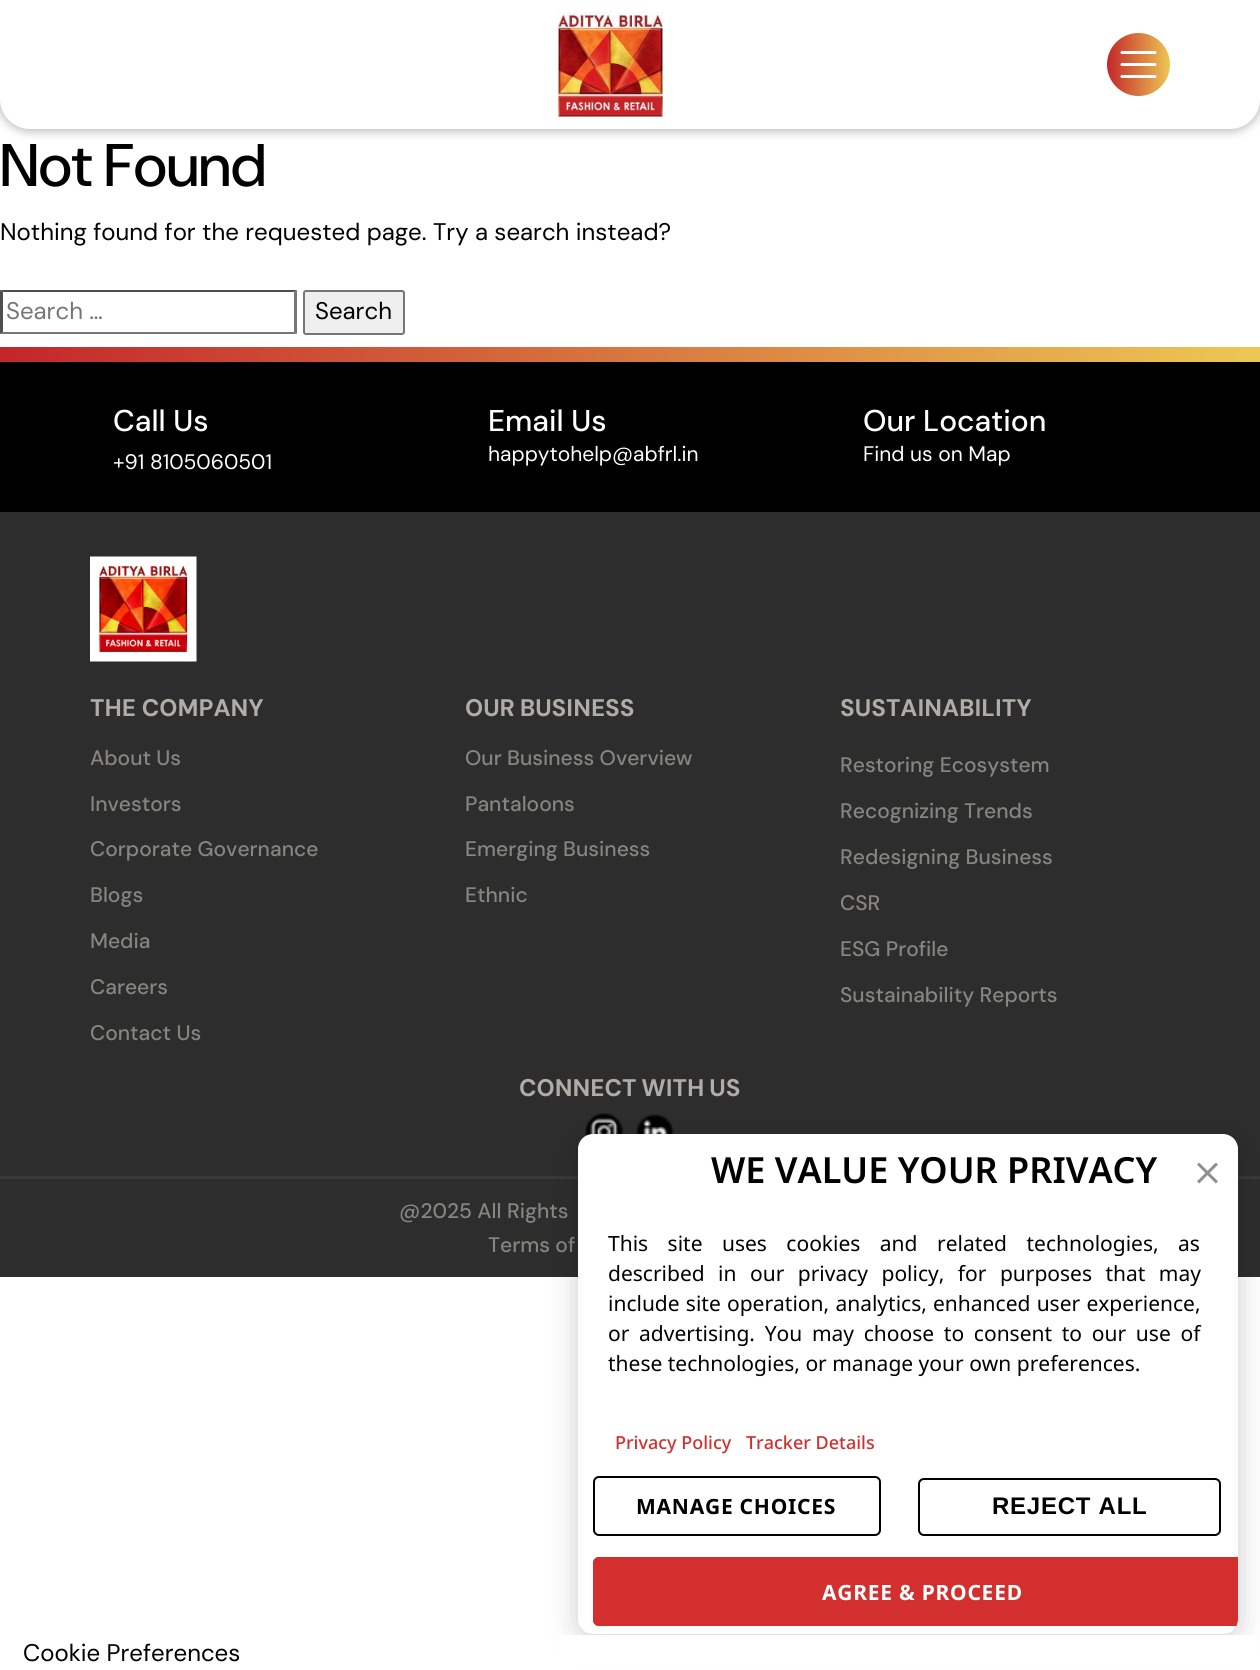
import math
import cairo

surface = cairo.ImageSurface(cairo.Format.RGB24, 1260, 1670)
ctx = cairo.Context(surface)
options = cairo.FontOptions()
options.set_hint_metrics(cairo.HintMetrics.OFF)
options.set_hint_style(cairo.HintStyle.NONE)
ctx.set_font_options(options)
ctx.set_miter_limit(4)


def ink(r, g, b):
    ctx.set_source_rgb(r / 255, g / 255, b / 255)


def write(x, y, s, family, size, color, bold=False, italic=False):
    ctx.select_font_face(family, cairo.FontSlant.ITALIC if italic else cairo.FontSlant.NORMAL, cairo.FontWeight.BOLD if bold else cairo.FontWeight.NORMAL)
    ctx.set_font_size(size)
    ink(*color)
    ctx.move_to(x, y)
    ctx.show_text(s)


def write_spaced(x, y, s, letter, word):
    ctx.move_to(x, y)
    for ch in s:
        ctx.show_text(ch)
        ctx.rel_move_to(letter + word * (ch == ' '), 0)


def block(x, y, w, h, *color):
    ink(*color)
    ctx.rectangle(x, y, w, h)
    ctx.fill()


def round_path(x, y, w, h, r):
    ctx.new_sub_path()
    for i, (u, v) in enumerate([(x + w - r, y + h - r), (x + r, y + h - r), (x + r, y + r), (x + w - r, y + r)]):
        ctx.arc(u, v, r, i * math.pi / 2, (i + 1) * math.pi / 2)
    ctx.close_path()


def blur_box(x, y, w, h, r, blur, alpha):
    ctx.push_group_with_content(cairo.Content.ALPHA)
    ctx.set_operator(cairo.Operator.SOURCE)
    for i in range(15, -16, -2):
        e = blur * i / 6
        if min(w, h) + 2 * e > 0:
            ctx.set_source_rgba(0, 0, 0, alpha * math.erfc((i - 1) / 8.5) / 2)
            round_path(x - e, y - e, w + 2 * e, h + 2 * e, max(0, min(r + e + blur * .6, min(w, h) / 2 + e)))
            ctx.fill()
    ctx.mask(ctx.pop_group())


def paste(path, x, y, w, h):
    ctx.save()
    ctx.set_source_surface(cairo.ImageSurface.create_from_png(path), x, y)
    ctx.rectangle(x, y, w, h)
    ctx.fill()
    ctx.restore()


s1 = dict(family="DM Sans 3 Medium", size=60, color=(0, 0, 0))
s2 = dict(family="DM Sans", size=24, color=(0, 0, 0))
s3 = dict(family="DM Sans", size=24, color=(117, 117, 117))
s4 = dict(family="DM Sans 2 Medium", size=30, color=(255, 255, 255))
s5 = dict(family="DM Sans 2", size=21, color=(255, 255, 255))
s6 = dict(family="DM Sans", size=24, color=(177, 172, 167), bold=True)
s7 = dict(family="DM Sans Medium", size=21, color=(136, 133, 128))
s8 = dict(family="Noto Sans SemiBold", size=36, color=(0, 0, 0))
s9 = dict(family="Noto Sans", size=21, color=(0, 0, 0))
s10 = dict(family="Noto Sans Medium", size=18, color=(211, 47, 47))

ink(255, 255, 255)
ctx.paint()
ink(0, 0, 0)
blur_box(-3, -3, 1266, 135, 33, 4.5, 0.25)
ink(255, 255, 255)
ctx.new_path()
ctx.move_to(0, 0)
ctx.line_to(1260, 0)
ctx.line_to(1260, 99)
ctx.curve_to(1260, 115.5, 1246.5, 129, 1230, 129)
ctx.line_to(30, 129)
ctx.curve_to(13.5, 129, 0, 115.5, 0, 99)
ctx.close_path()
ctx.fill()
paste("pic1.png", 558, 12, 105, 105)
gradient = cairo.LinearGradient(1107, 65, 1170, 65)
gradient.add_color_stop_rgba(0, 0.765, 0.149, 0.165, 1)
gradient.add_color_stop_rgba(0.99, 0.929, 0.776, 0.329, 1)
ctx.set_source(gradient)
ctx.arc(1138.5, 64.5, 31.5, 0, 2 * math.pi)
ctx.fill()
ctx.new_path()
ctx.move_to(1122, 52.5)
ctx.line_to(1155, 52.5)
ctx.move_to(1122, 64.5)
ctx.line_to(1155, 64.5)
ctx.move_to(1122, 76.5)
ctx.line_to(1155, 76.5)
ink(255, 255, 255)
ctx.set_line_width(3)
ctx.set_line_cap(cairo.LineCap.ROUND)
ctx.stroke()
write(0, 186, "Not Found", **s1)
write(0, 240, "Nothing found for the requested page. Try a search instead?", **s2)
ink(79, 79, 79)
ctx.new_path()
ctx.move_to(0, 290)
ctx.line_to(297, 290)
ctx.line_to(294, 292)
ctx.line_to(3, 292)
ctx.close_path()
ctx.fill()
ink(118, 118, 118)
ctx.new_path()
ctx.move_to(297, 290)
ctx.line_to(297, 334)
ctx.line_to(294, 332)
ctx.line_to(294, 292)
ctx.close_path()
ctx.fill()
ctx.new_path()
ctx.move_to(297, 334)
ctx.line_to(0, 334)
ctx.line_to(3, 332)
ctx.line_to(294, 332)
ctx.close_path()
ctx.fill()
ink(79, 79, 79)
ctx.new_path()
ctx.move_to(0, 334)
ctx.line_to(0, 290)
ctx.line_to(3, 292)
ctx.line_to(3, 332)
ctx.close_path()
ctx.fill()
write(6, 319, "Search …", **s3)
ink(239, 239, 239)
round_path(304, 291, 100, 43, 2)
ctx.fill_preserve()
ink(118, 118, 118)
ctx.set_line_width(2)
ctx.set_line_cap(cairo.LineCap.BUTT)
ctx.stroke()
write(315, 319, "Search", **s2)
gradient = cairo.LinearGradient(0, 354, 1260, 354)
gradient.add_color_stop_rgba(0, 0.765, 0.149, 0.165, 1)
gradient.add_color_stop_rgba(0.99, 0.929, 0.776, 0.329, 1)
ctx.set_source(gradient)
ctx.rectangle(0, 347, 1260, 15)
ctx.fill()
block(0, 362, 1260, 150, 0, 0, 0)
write(113, 431, "Call Us", **s4)
write(113, 469, "+91 8105060501", **s5)
write(488, 431, "Email Us", **s4)
write(488, 461, "happytohelp@abfrl.in", **s5)
write(863, 431, "Our Location", **s4)
write(863, 461, "Find us on Map", **s5)
block(0, 512, 1260, 664, 44, 45, 44)
paste("pic2.png", 90, 556, 107, 106)
write(90, 716, "THE COMPANY", **s6)
write(90, 765, "About Us", **s7)
write(90, 811, "Investors", **s7)
write(90, 856, "Corporate Governance", **s7)
write(90, 902, "Blogs", **s7)
write(90, 948, "Media", **s7)
write(90, 994, "Careers", **s7)
write(90, 1040, "Contact Us", **s7)
ctx.select_font_face("DM Sans", cairo.FontSlant.NORMAL, cairo.FontWeight.BOLD)
ctx.set_font_size(24)
ink(177, 172, 167)
write_spaced(465, 716, "OUR BUSINESS", 0, -1)
write(465, 765, "Our Business Overview", **s7)
write(465, 811, "Pantaloons", **s7)
write(465, 856, "Emerging Business", **s7)
write(465, 902, "Ethnic", **s7)
write(840, 716, "SUSTAINABILITY", **s6)
write(840, 772, "Restoring Ecosystem", **s7)
write(840, 818, "Recognizing Trends", **s7)
write(840, 864, "Redesigning Business", **s7)
write(840, 910, "CSR", **s7)
write(840, 956, "ESG Profile", **s7)
write(840, 1002, "Sustainability Reports", **s7)
ctx.select_font_face("DM Sans", cairo.FontSlant.NORMAL, cairo.FontWeight.BOLD)
ctx.set_font_size(24)
ink(177, 172, 167)
write_spaced(519, 1096, "CONNECT WITH US", 0, -1)
paste("pic3.png", 585, 1113, 39, 24)
paste("pic4.png", 636, 1114, 38, 20)
block(0, 1179, 1260, 98, 44, 45, 44)
block(0, 1176, 1260, 3, 56, 57, 57)
write(399, 1218, "@2025 All Rights", **s7)
write(488, 1252, "Terms of", **s7)
ink(0, 0, 0)
blur_box(578, 1140, 660, 500, 15, 15, 0.2)
ink(255, 255, 255)
round_path(578, 1134, 660, 500, 15)
ctx.fill()
write(711, 1183, "WE VALUE YOUR PRIVACY", **s8)
ctx.select_font_face("Noto Sans")
ctx.set_font_size(21)
write_spaced(608, 1251, "This site uses cookies and related technologies, as", 0, 14)
write_spaced(608, 1281, "described in our privacy policy, for purposes that may", 0, 8)
write_spaced(608, 1311, "include site operation, analytics, enhanced user experience,", 0, 0.75)
write_spaced(608, 1341, "or advertising. You may choose to consent to our use of", 0, 4.25)
write(608, 1371, "these technologies, or manage your own preferences.", **s9)
paste("pic5.png", 1197, 1163, 21, 21)
round_path(594, 1477, 286, 58, 5)
ctx.stroke()
ctx.select_font_face("Noto Sans", cairo.FontSlant.NORMAL, cairo.FontWeight.BOLD)
write_spaced(636, 1514, "MANAGE CHOICES", 0.75, 0)
round_path(919, 1479, 301, 56, 5)
ctx.stroke()
ctx.select_font_face("Liberation Sans", cairo.FontSlant.NORMAL, cairo.FontWeight.BOLD)
ctx.set_font_size(24)
write_spaced(992, 1514, "REJECT ALL", 0.75, 0)
ctx.save()
round_path(578, 1134, 660, 500, 15)
ctx.clip()
ink(211, 47, 47)
ctx.new_path()
ctx.move_to(599, 1557)
ctx.line_to(1238, 1557)
ctx.line_to(1238, 1626)
ctx.line_to(599, 1626)
ctx.curve_to(595.5, 1626, 593, 1623.5, 593, 1620)
ctx.line_to(593, 1563)
ctx.curve_to(593, 1559.5, 595.5, 1557, 599, 1557)
ctx.close_path()
ctx.fill()
ctx.restore()
ink(211, 47, 47)
ctx.new_path()
ctx.move_to(599, 1557)
ctx.curve_to(596, 1557, 593, 1560, 593, 1563)
ctx.line_to(593, 1620)
ctx.curve_to(593, 1623, 596, 1626, 599, 1626)
ctx.line_to(1236, 1626)
ctx.line_to(1237, 1624)
ctx.line_to(599, 1624)
ctx.curve_to(597, 1624, 595, 1622, 595, 1620)
ctx.line_to(595, 1563)
ctx.curve_to(595, 1561, 597, 1559, 599, 1559)
ctx.line_to(1238, 1559)
ctx.line_to(1238, 1557)
ctx.close_path()
ctx.fill()
ctx.select_font_face("Noto Sans", cairo.FontSlant.NORMAL, cairo.FontWeight.BOLD)
ctx.set_font_size(21)
ink(255, 255, 255)
write_spaced(822, 1600, "AGREE & PROCEED", 0.75, 0)
write(615, 1449, "Privacy Policy", **s10)
write(746, 1449, "Tracker Details", **s10)
block(559, 1635, 698, 30, 255, 255, 255)
write(23, 1661, "Cookie Preferences", **s2)
surface.write_to_png("screenshot.png")
